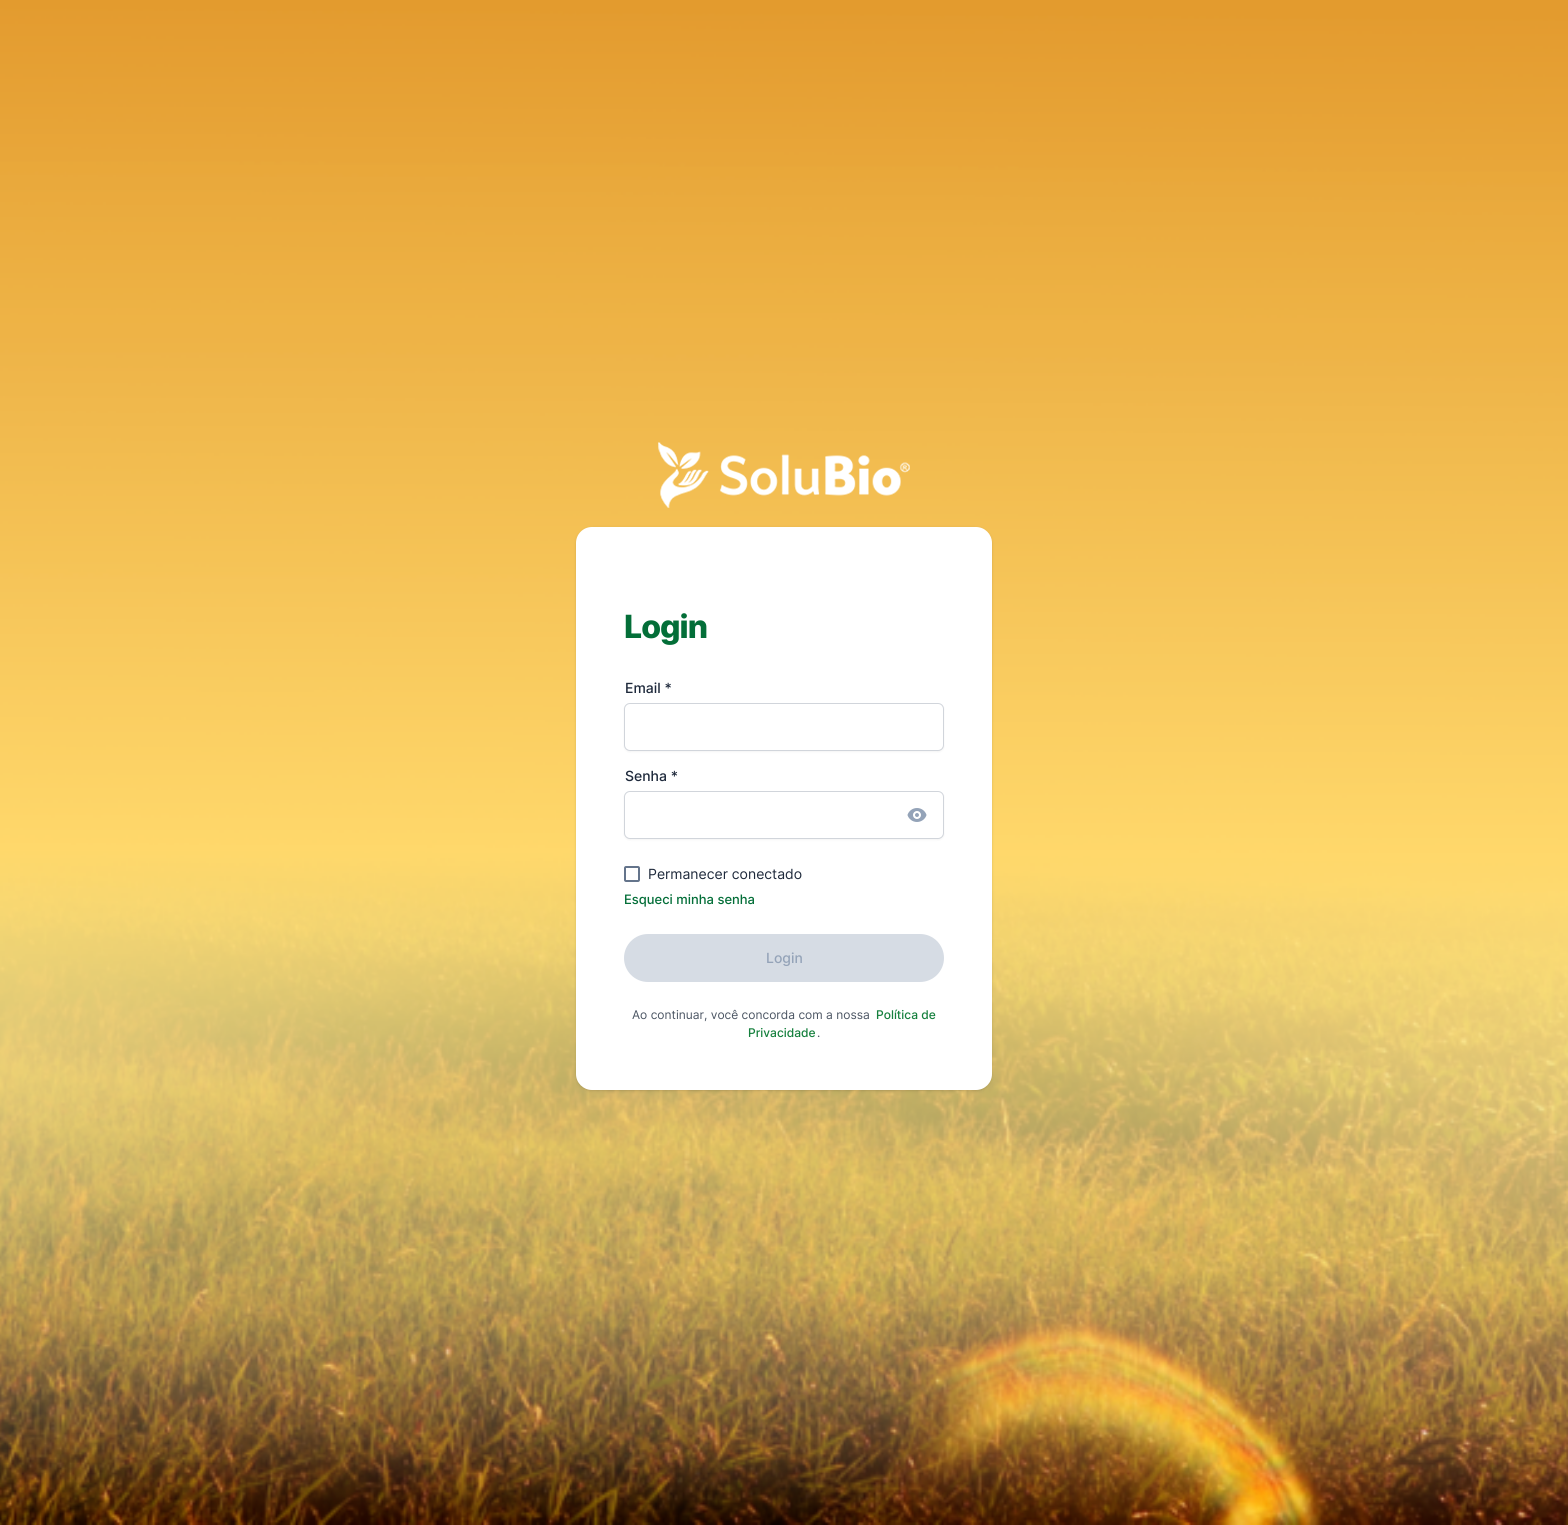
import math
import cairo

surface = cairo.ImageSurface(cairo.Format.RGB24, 1568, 1525)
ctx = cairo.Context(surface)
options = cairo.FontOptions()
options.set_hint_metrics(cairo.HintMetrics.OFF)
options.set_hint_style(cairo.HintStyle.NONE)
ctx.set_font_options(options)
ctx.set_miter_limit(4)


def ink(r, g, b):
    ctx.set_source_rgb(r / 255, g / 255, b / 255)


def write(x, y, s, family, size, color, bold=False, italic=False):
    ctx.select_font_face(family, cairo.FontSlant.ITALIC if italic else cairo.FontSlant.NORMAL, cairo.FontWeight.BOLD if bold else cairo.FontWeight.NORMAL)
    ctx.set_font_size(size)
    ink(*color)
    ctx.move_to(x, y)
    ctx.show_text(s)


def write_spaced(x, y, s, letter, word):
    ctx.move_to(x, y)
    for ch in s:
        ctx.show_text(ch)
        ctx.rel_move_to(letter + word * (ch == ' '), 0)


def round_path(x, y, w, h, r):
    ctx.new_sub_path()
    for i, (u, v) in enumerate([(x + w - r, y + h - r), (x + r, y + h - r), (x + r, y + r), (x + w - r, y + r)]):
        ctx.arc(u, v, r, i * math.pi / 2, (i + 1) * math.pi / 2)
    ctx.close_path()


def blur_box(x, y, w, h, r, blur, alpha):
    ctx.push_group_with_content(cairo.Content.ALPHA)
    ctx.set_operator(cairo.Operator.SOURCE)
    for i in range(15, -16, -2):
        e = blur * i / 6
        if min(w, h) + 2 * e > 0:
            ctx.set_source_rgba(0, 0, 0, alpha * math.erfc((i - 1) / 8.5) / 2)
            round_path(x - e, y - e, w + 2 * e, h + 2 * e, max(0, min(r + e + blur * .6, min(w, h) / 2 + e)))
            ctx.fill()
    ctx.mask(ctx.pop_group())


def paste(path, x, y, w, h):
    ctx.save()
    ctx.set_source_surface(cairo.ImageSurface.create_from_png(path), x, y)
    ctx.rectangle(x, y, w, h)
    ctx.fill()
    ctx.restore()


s1 = dict(family="Inter Medium", size=14, color=(30, 41, 59))
s2 = dict(family="Inter", size=14, color=(30, 41, 59))
s3 = dict(family="Inter Medium", size=13, color=(3, 110, 56))
s4 = dict(family="Inter Medium", size=14, color=(148, 163, 184))
s5 = dict(family="Inter", size=12, color=(75, 85, 99))
s6 = dict(family="Inter Medium", size=12, color=(21, 128, 61))

ink(255, 255, 255)
ctx.paint()
paste("pic1.png", 0, 0, 1568, 1525)
paste("pic2.png", 658, 442, 252, 66)
ink(0, 0, 0)
blur_box(577, 529, 414, 561, 15, 1, 0.1)
blur_box(576, 528, 416, 563, 16, 1.5, 0.1)
ink(255, 255, 255)
round_path(576, 527, 416, 563, 16)
ctx.fill()
ctx.select_font_face("Inter ExtraBold")
ctx.set_font_size(32)
ink(3, 110, 56)
write_spaced(624, 638, "Login", -1, 0)
ink(0, 0, 0)
blur_box(624, 704, 320, 48, 6, 1, 0.05)
ink(255, 255, 255)
round_path(624.5, 703.5, 319, 47, 5.5)
ctx.fill_preserve()
ink(209, 213, 219)
ctx.set_line_width(1)
ctx.stroke()
write(625, 693, "Email *", **s1)
ink(0, 0, 0)
blur_box(624, 792, 320, 48, 6, 1, 0.05)
ink(255, 255, 255)
round_path(624.5, 791.5, 319, 47, 5.5)
ctx.fill_preserve()
ink(209, 213, 219)
ctx.stroke()
write(625, 781, "Senha *", **s1)
paste("pic3.png", 907, 808, 20, 14)
round_path(625, 867, 14, 14, 1)
ink(100, 116, 139)
ctx.set_line_width(2)
ctx.stroke()
write(648, 879, "Permanecer conectado", **s2)
write(624, 904, "Esqueci minha senha", **s3)
ink(214, 220, 228)
round_path(624, 934, 320, 48, 24)
ctx.fill()
write(766, 963, "Login", **s4)
write(632, 1019, "Ao continuar, você concorda com a nossa", **s5)
write(876, 1019, "Política de", **s6)
write(748, 1037, "Privacidade", **s6)
write(817, 1037, ".", **s5)
surface.write_to_png("screenshot.png")
